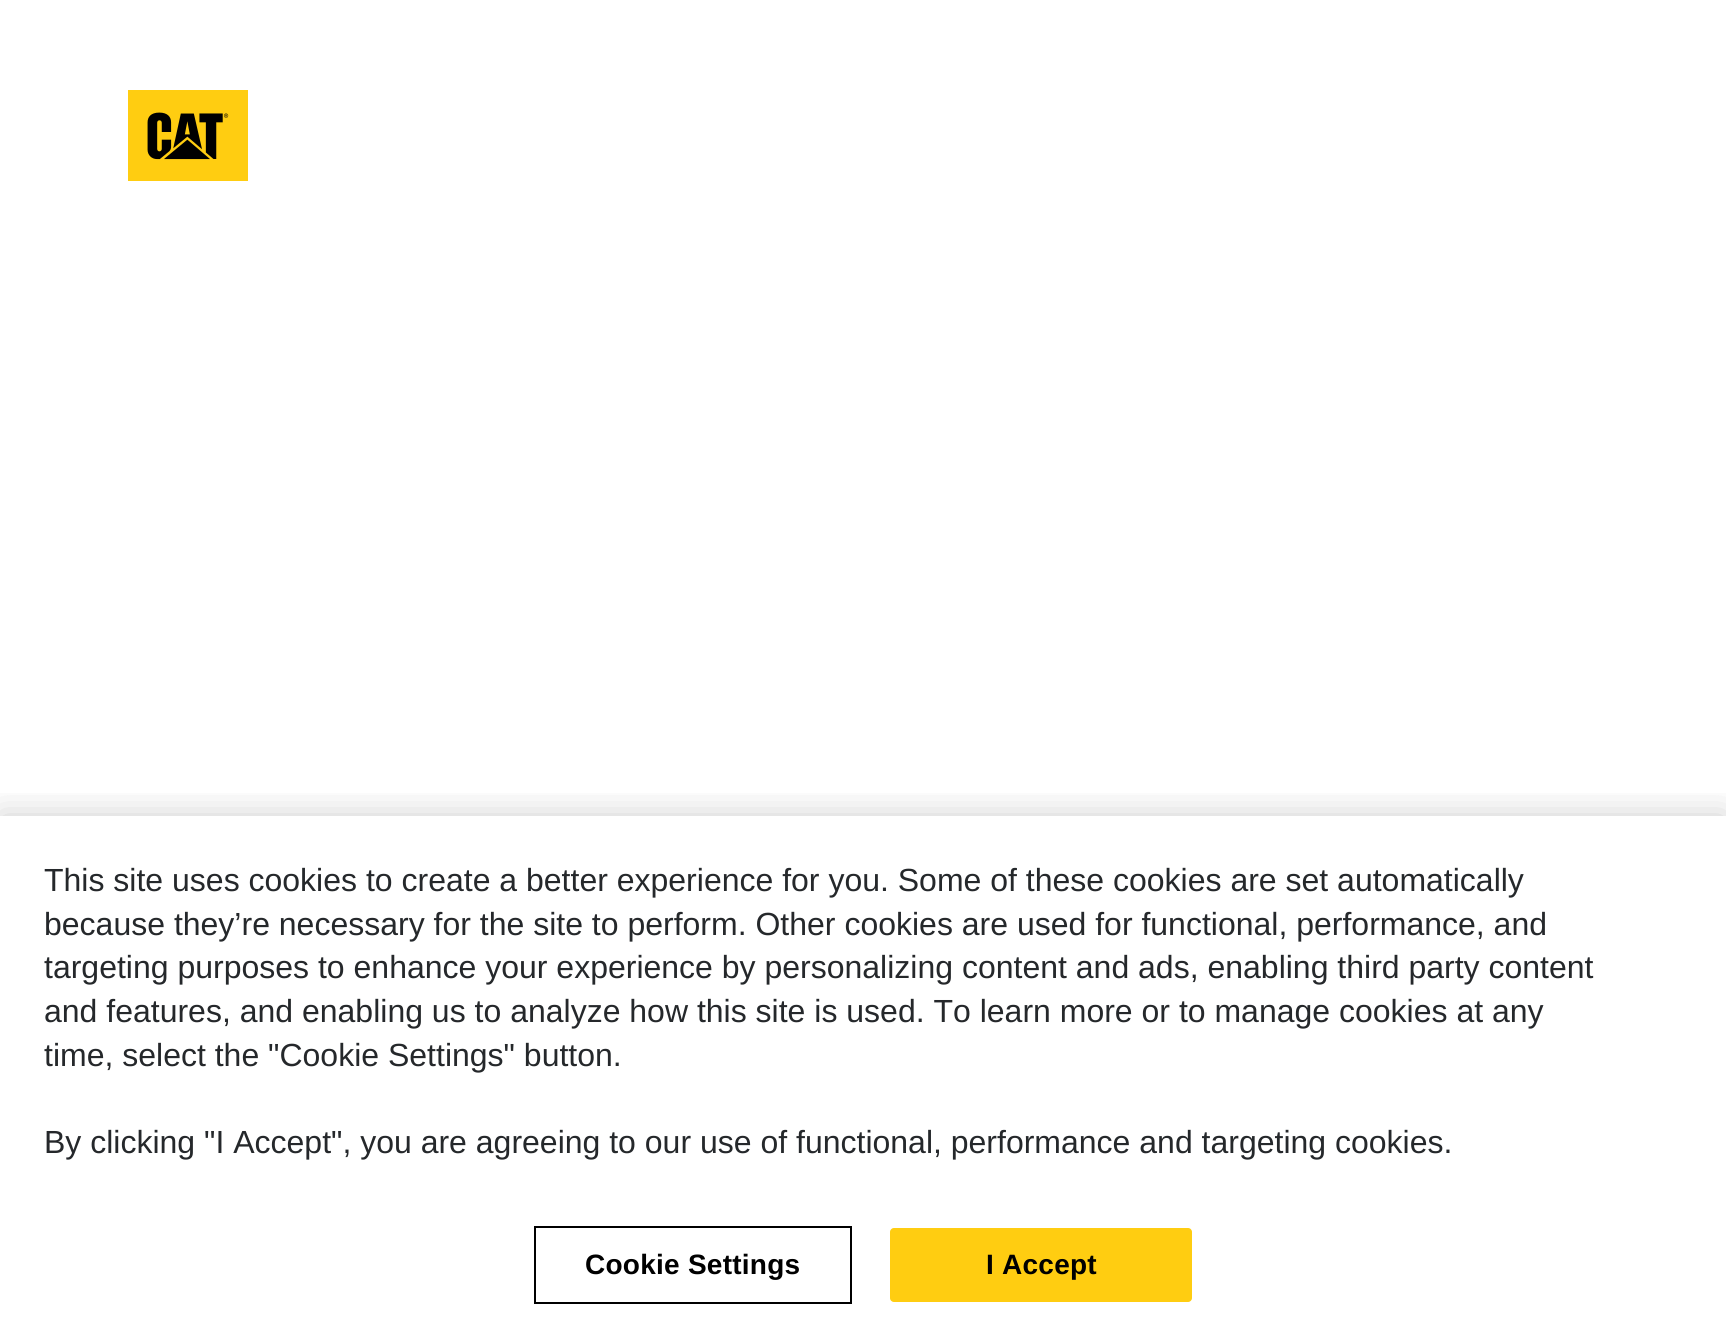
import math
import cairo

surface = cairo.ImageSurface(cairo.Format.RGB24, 1726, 1344)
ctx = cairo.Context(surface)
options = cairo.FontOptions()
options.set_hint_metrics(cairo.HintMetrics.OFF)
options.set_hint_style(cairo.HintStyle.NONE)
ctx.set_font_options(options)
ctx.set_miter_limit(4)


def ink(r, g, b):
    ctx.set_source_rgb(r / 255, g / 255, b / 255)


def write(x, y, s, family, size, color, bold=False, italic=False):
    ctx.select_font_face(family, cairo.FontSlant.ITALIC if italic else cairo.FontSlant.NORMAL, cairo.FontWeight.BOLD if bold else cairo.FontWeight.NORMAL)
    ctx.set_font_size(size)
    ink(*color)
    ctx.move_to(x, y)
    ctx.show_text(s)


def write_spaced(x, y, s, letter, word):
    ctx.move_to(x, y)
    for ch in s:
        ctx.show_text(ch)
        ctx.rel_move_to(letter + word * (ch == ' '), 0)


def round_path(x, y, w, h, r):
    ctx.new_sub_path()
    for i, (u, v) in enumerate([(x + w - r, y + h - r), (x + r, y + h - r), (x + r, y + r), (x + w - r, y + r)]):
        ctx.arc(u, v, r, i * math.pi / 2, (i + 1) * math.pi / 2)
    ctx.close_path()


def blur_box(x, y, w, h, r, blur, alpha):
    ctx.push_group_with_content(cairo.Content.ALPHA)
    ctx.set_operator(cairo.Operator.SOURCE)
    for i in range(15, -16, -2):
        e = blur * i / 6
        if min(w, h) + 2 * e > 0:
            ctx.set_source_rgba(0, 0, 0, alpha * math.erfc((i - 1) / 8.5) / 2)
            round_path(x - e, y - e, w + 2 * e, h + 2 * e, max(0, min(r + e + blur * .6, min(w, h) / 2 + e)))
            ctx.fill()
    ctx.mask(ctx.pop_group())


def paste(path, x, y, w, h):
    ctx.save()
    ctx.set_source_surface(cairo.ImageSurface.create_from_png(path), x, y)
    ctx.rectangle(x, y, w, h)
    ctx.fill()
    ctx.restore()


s1 = dict(family="Liberation Sans", size=32, color=(37, 40, 43))

ink(255, 255, 255)
ctx.paint()
paste("pic1.png", 128, 90, 120, 91)
ctx.save()
ctx.rectangle(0, 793, 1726, 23)
ctx.clip()
ink(0, 0, 0)
blur_box(0, 816, 1726, 528, 0, 18, 0.2)
ctx.restore()
write(44, 891, "This site uses cookies to create a better experience for you. Some of these cookies are set automatically", **s1)
write(44, 935, "because they’re necessary for the site to perform. Other cookies are used for functional, performance, and", **s1)
write(44, 978, "targeting purposes to enhance your experience by personalizing content and ads, enabling third party content", **s1)
write(44, 1022, "and features, and enabling us to analyze how this site is used. To learn more or to manage cookies at any", **s1)
write(44, 1066, "time, select the \"Cookie Settings\" button.", **s1)
write(44, 1153, "By clicking \"I Accept\", you are agreeing to our use of functional, performance and targeting cookies.", **s1)
ctx.rectangle(535, 1227, 316, 76)
ink(0, 0, 0)
ctx.stroke()
ctx.select_font_face("Liberation Sans", cairo.FontSlant.NORMAL, cairo.FontWeight.BOLD)
ctx.set_font_size(28)
write_spaced(585, 1274, "Cookie Settings", 0.25, 0)
ink(255, 205, 17)
round_path(890, 1228, 302, 74, 4)
ctx.fill()
ink(0, 0, 0)
write_spaced(986, 1274, "I Accept", 0.25, 0)
surface.write_to_png("screenshot.png")
